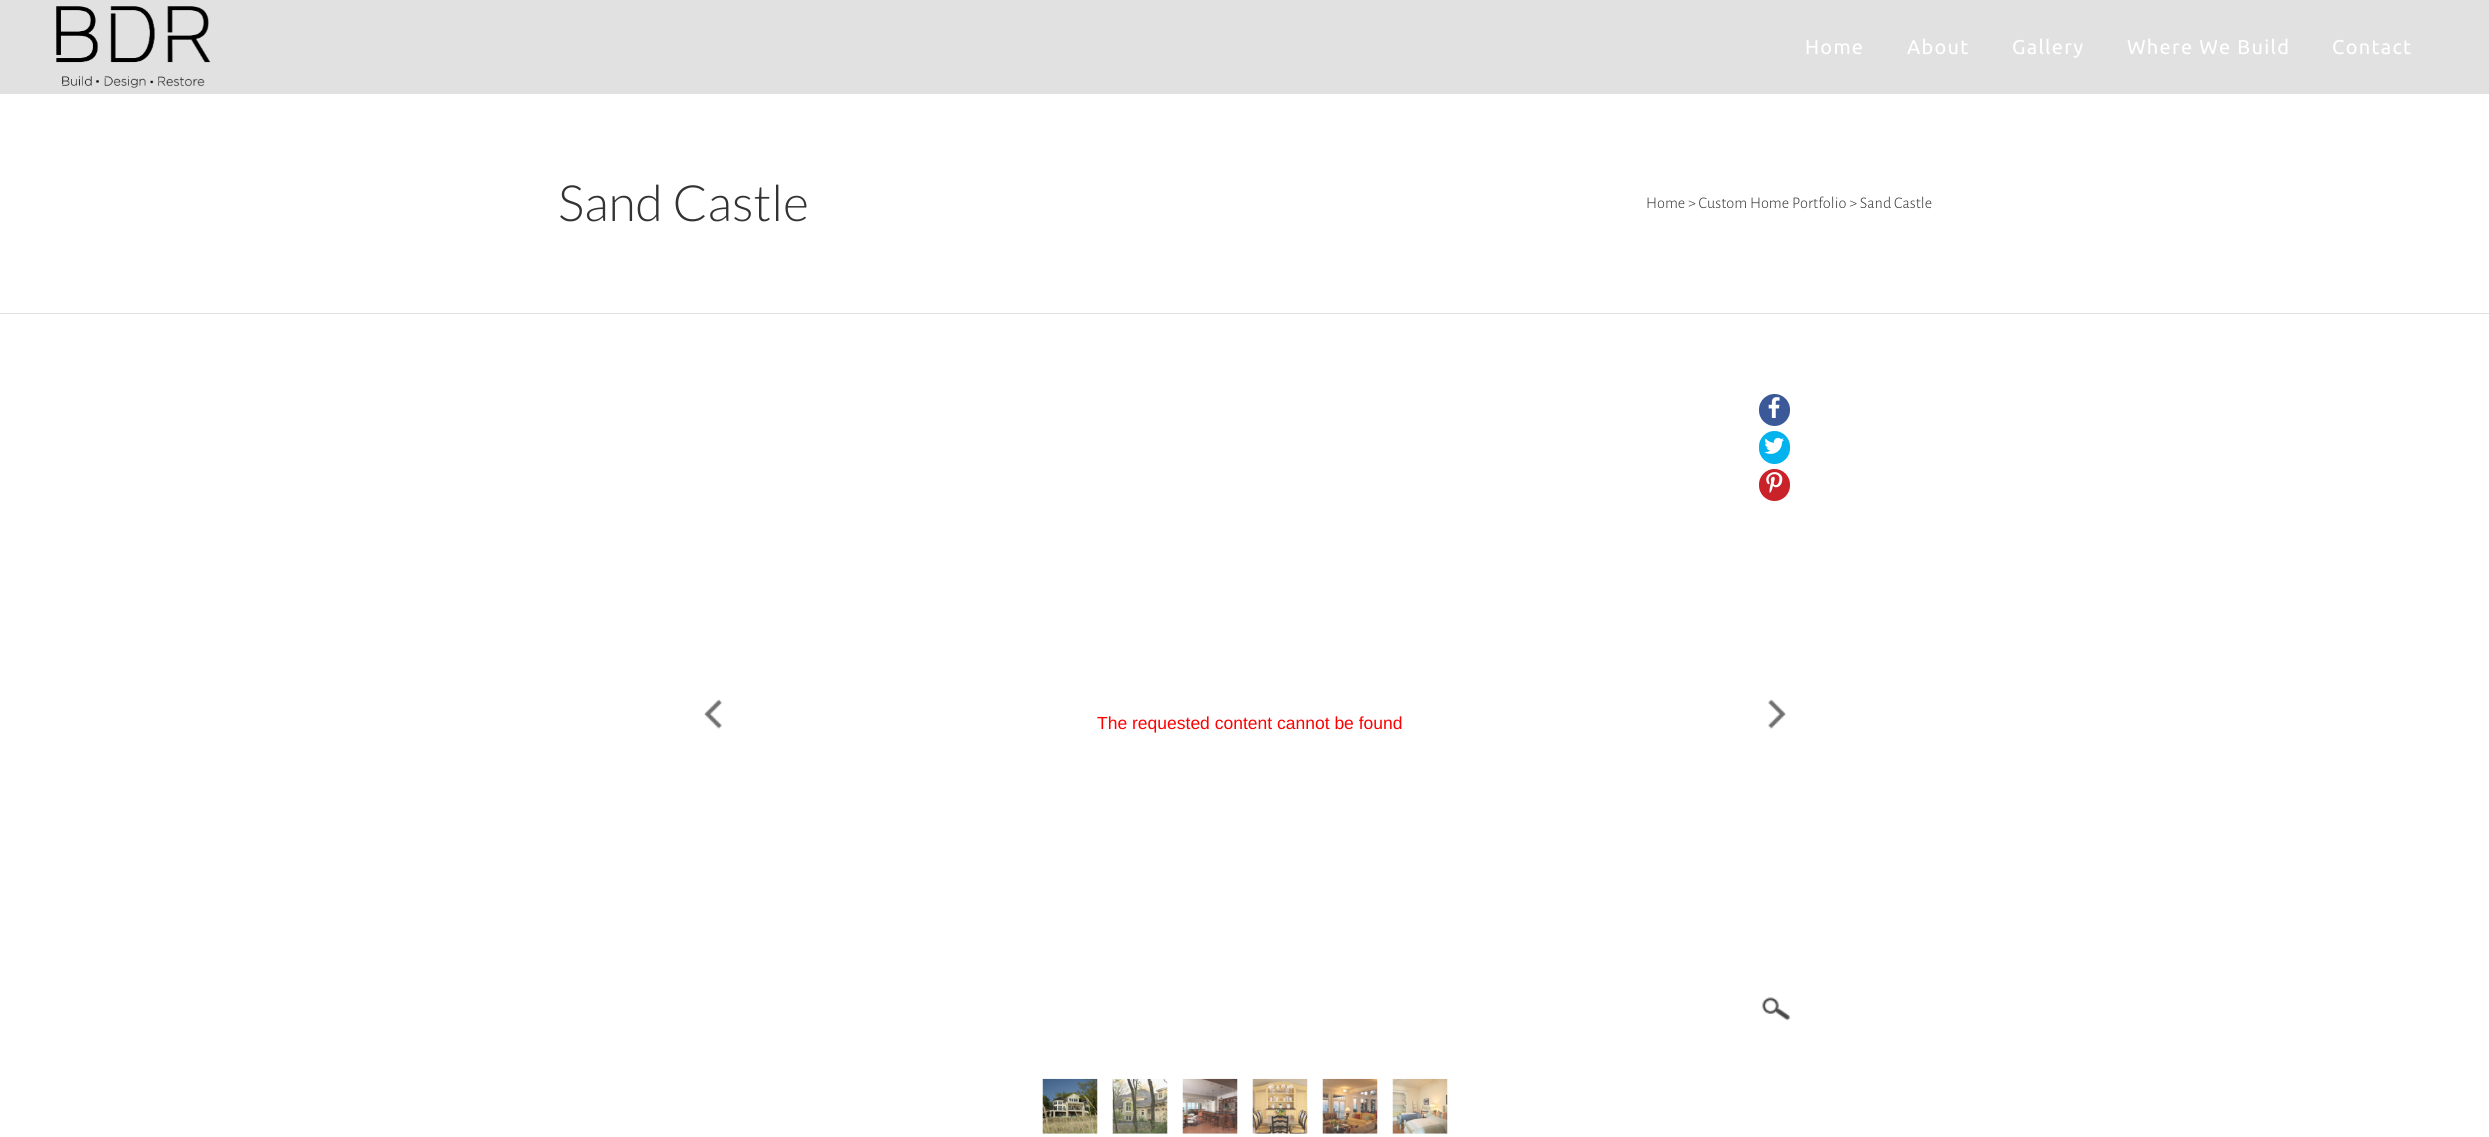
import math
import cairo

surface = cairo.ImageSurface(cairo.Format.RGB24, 2489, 1137)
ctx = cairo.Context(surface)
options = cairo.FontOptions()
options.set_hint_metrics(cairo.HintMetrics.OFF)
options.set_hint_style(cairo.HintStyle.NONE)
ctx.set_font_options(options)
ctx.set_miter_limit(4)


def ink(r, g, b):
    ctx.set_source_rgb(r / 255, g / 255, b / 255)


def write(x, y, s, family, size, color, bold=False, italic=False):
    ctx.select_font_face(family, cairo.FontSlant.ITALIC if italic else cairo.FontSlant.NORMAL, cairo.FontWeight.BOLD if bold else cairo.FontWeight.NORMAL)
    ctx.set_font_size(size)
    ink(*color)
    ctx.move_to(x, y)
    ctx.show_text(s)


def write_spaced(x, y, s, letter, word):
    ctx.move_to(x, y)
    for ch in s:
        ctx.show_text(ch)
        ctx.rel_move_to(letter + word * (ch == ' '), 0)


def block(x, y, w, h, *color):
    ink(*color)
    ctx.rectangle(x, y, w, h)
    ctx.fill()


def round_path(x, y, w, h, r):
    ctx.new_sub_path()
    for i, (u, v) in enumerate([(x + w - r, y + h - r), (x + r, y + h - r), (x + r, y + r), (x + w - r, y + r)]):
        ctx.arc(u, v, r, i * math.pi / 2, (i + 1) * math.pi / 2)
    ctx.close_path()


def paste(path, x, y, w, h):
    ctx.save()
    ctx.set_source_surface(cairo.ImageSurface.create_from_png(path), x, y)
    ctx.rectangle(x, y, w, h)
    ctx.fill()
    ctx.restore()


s1 = dict(family="Lato Light", size=50, color=(51, 51, 51))
s2 = dict(family="Alegreya Sans Light", size=16.25, color=(51, 51, 51))
s3 = dict(family="Liberation Sans", size=17.5, color=(255, 0, 0))

ink(255, 255, 255)
ctx.paint()
block(0, 0, 2489, 94, 225, 225, 225)
paste("pic1.png", 56, 6, 155, 82)
ctx.select_font_face("Ubuntu")
ctx.set_font_size(20)
ink(255, 255, 255)
write_spaced(1805, 54, "Home", 1.25, 0)
write_spaced(1907, 54, "About", 1.25, 0)
write_spaced(2012, 54, "Gallery", 1.25, 0)
write_spaced(2127, 54, "Where We Build", 1.25, 0)
write_spaced(2332, 54, "Contact", 1.25, 0)
block(0, 313, 2489, 1, 224, 224, 224)
write(558, 221, "Sand Castle", **s1)
write(1646, 208, "Home > Custom Home Portfolio > Sand Castle", **s2)
ink(59, 89, 152)
round_path(1759, 394, 31, 32, 15.5)
ctx.fill()
paste("pic2.png", 1768, 397, 12, 21)
ink(3, 179, 238)
round_path(1759, 431, 31, 33, 15.5)
ctx.fill()
paste("pic3.png", 1764, 437, 20, 17)
ink(201, 34, 40)
round_path(1759, 469, 31, 32, 15.5)
ctx.fill()
paste("pic4.png", 1766, 472, 17, 21)
paste("pic5.png", 703, 699, 20, 30)
paste("pic6.png", 1767, 699, 20, 30)
paste("pic7.png", 1762, 997, 29, 24)
write(1097, 729, "The requested content cannot be found", **s3)
paste("pic8.png", 1042, 1078, 56, 56)
paste("pic9.png", 1112, 1078, 56, 56)
paste("pic10.png", 1182, 1078, 56, 56)
paste("pic11.png", 1252, 1078, 56, 56)
paste("pic12.png", 1322, 1078, 56, 56)
paste("pic13.png", 1392, 1078, 56, 56)
surface.write_to_png("screenshot.png")
